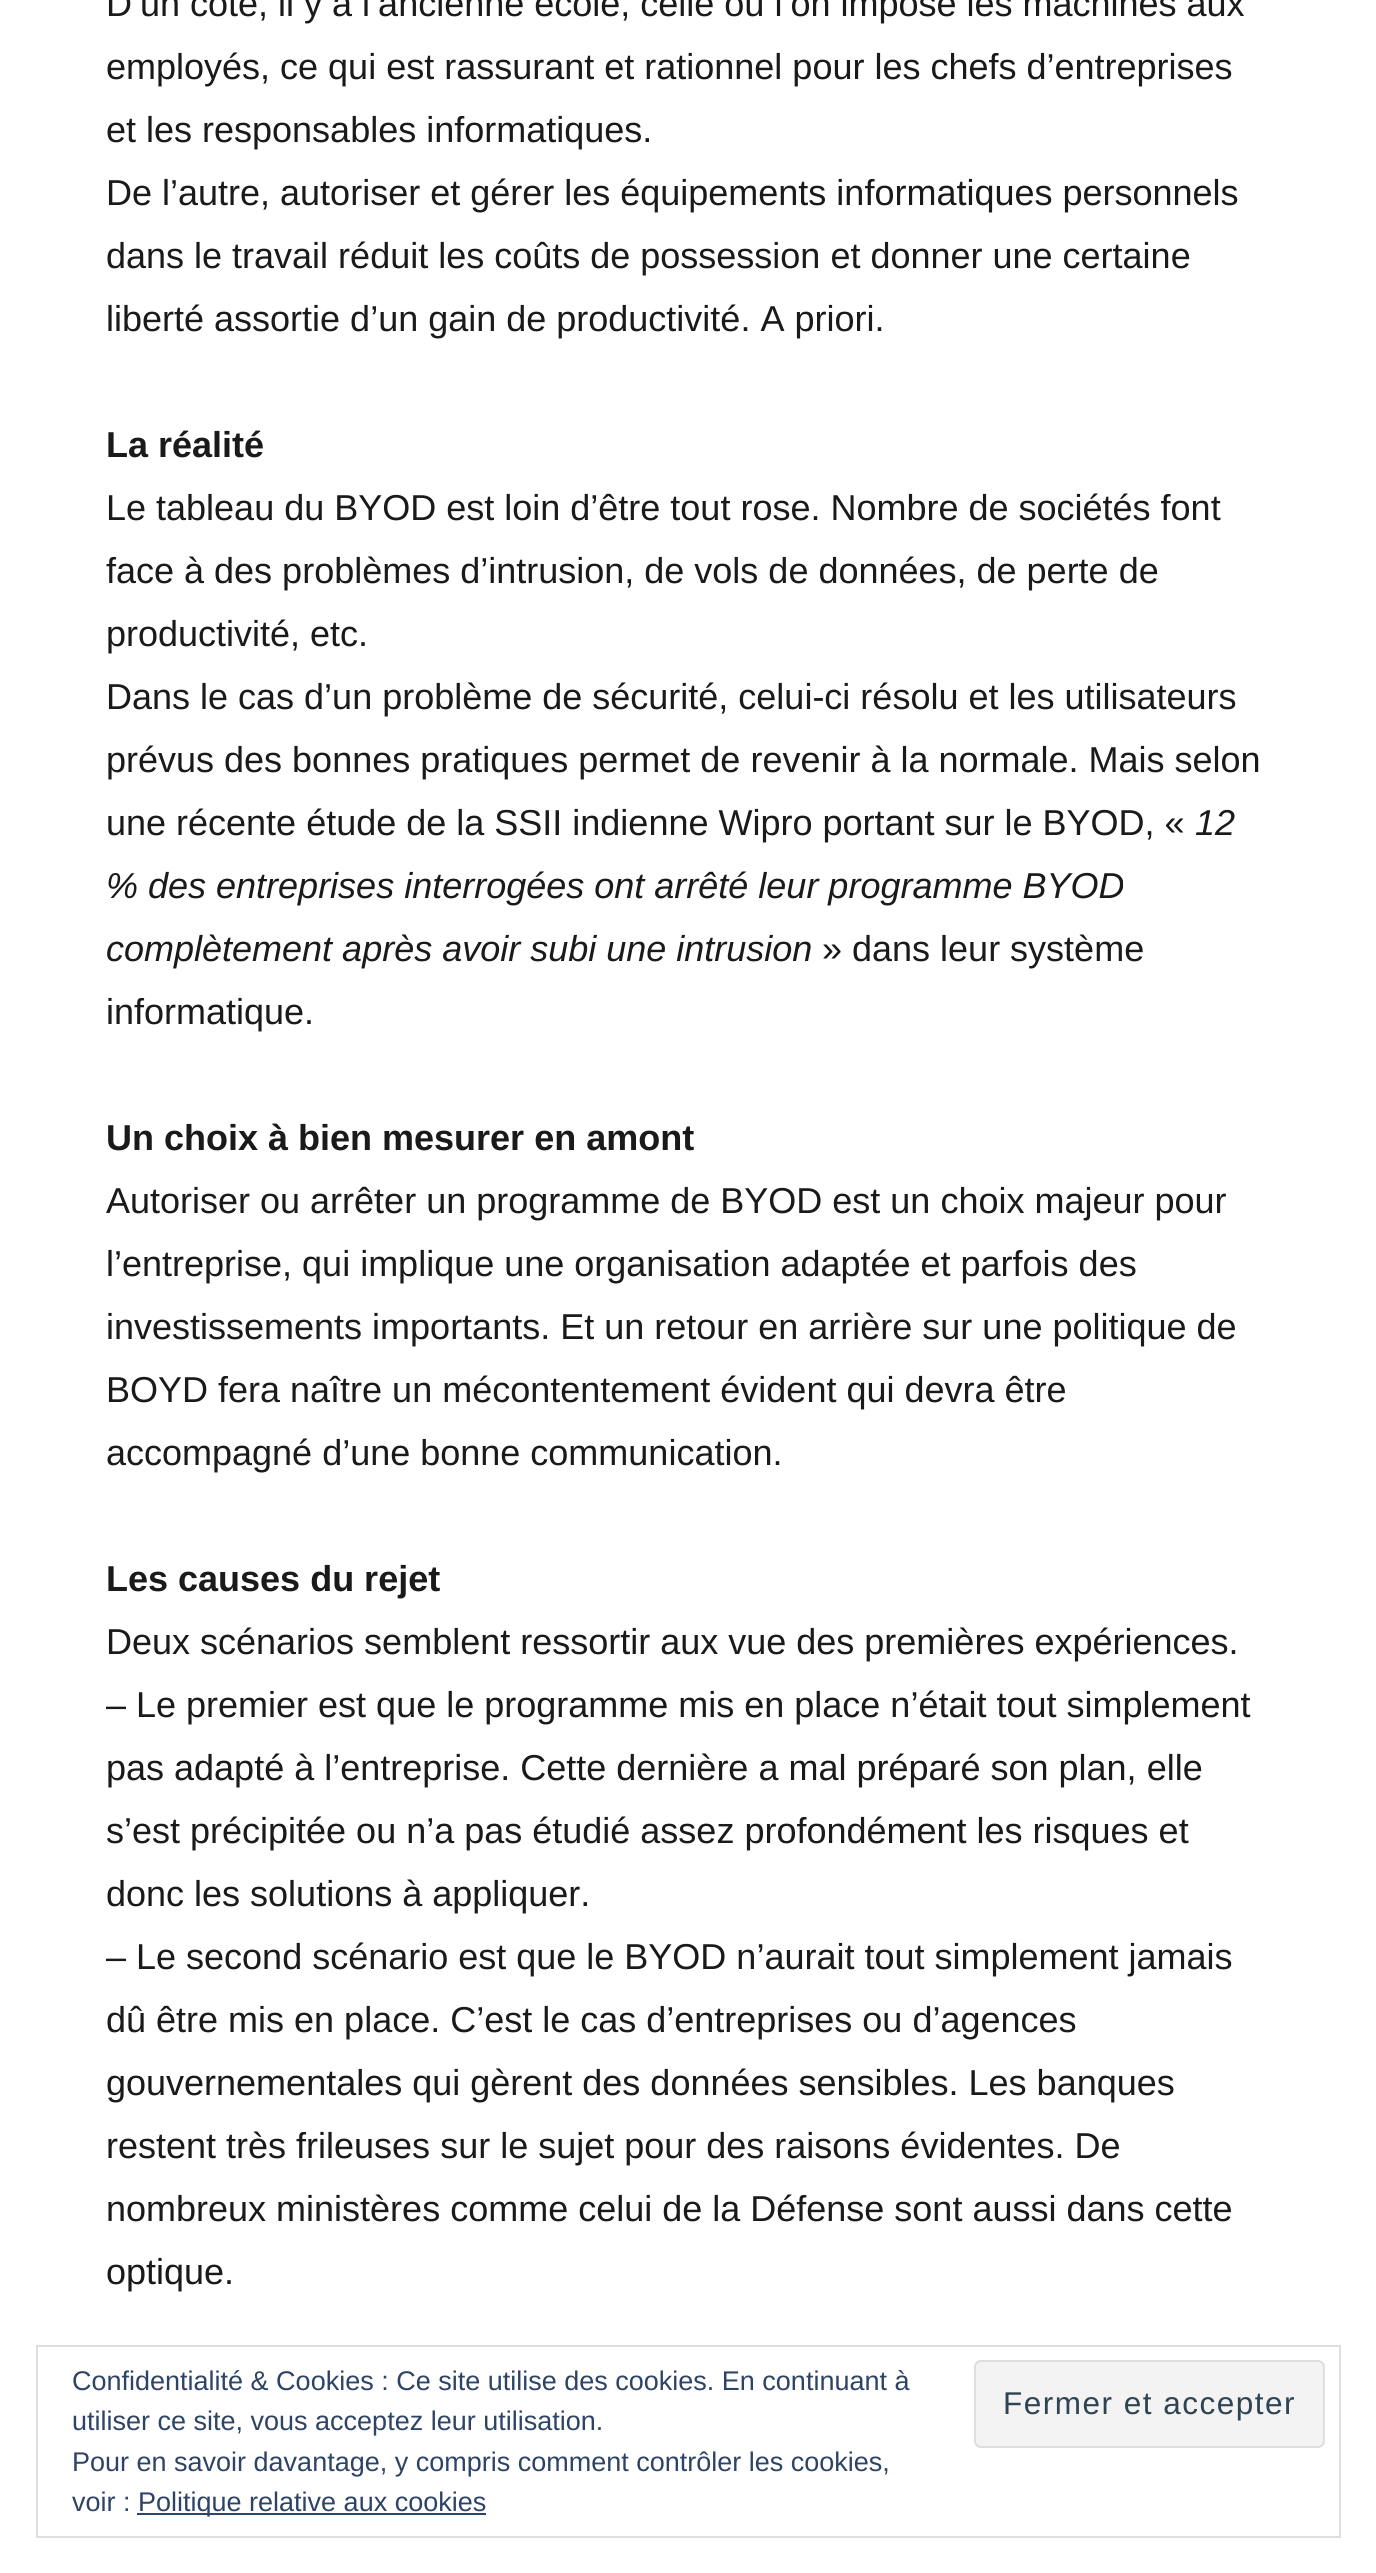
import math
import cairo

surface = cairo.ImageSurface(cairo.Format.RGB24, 1376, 2573)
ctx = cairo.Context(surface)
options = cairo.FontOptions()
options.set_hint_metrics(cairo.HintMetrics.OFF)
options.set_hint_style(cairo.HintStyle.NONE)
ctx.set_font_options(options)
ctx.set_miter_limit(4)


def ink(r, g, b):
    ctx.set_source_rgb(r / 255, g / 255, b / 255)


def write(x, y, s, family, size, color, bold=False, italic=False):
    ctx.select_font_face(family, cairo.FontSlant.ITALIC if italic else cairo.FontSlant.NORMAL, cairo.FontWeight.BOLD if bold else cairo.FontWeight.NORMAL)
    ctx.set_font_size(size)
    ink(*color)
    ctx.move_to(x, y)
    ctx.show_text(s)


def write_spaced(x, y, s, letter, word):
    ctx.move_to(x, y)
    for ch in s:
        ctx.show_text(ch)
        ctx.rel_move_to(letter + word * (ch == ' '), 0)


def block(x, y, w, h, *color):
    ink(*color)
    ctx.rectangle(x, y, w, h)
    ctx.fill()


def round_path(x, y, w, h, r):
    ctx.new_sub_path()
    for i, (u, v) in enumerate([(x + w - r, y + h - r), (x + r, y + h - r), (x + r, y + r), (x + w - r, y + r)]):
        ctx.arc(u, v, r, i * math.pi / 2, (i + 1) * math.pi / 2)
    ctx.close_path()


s1 = dict(family="Arimo", size=36, color=(26, 26, 26))
s2 = dict(family="Arimo", size=36, color=(26, 26, 26), bold=True)
s3 = dict(family="Arimo", size=36, color=(26, 26, 26), italic=True)
s4 = dict(family="Arimo", size=27, color=(46, 68, 103))

ink(255, 255, 255)
ctx.paint()
write(106, 16, "D’un côté, il y a l’ancienne école, celle où l’on impose les machines aux", **s1)
write(106, 79, "employés, ce qui est rassurant et rationnel pour les chefs d’entreprises", **s1)
write(106, 142, "et les responsables informatiques.", **s1)
write(106, 205, "De l’autre, autoriser et gérer les équipements informatiques personnels", **s1)
write(106, 268, "dans le travail réduit les coûts de possession et donner une certaine", **s1)
write(106, 331, "liberté assortie d’un gain de productivité. A priori.", **s1)
write(106, 457, "La réalité", **s2)
write(106, 520, "Le tableau du BYOD est loin d’être tout rose. Nombre de sociétés font", **s1)
write(106, 583, "face à des problèmes d’intrusion, de vols de données, de perte de", **s1)
write(106, 646, "productivité, etc.", **s1)
write(106, 709, "Dans le cas d’un problème de sécurité, celui-ci résolu et les utilisateurs", **s1)
write(106, 772, "prévus des bonnes pratiques permet de revenir à la normale. Mais selon", **s1)
write(106, 835, "une récente étude de la SSII indienne Wipro portant sur le BYOD, «", **s1)
write(1195, 835, "12", **s3)
write(106, 898, "% des entreprises interrogées ont arrêté leur programme BYOD", **s3)
write(106, 961, "complètement après avoir subi une intrusion", **s3)
write(822, 961, "» dans leur système", **s1)
write(106, 1024, "informatique.", **s1)
write(106, 1150, "Un choix à bien mesurer en amont", **s2)
write(106, 1213, "Autoriser ou arrêter un programme de BYOD est un choix majeur pour", **s1)
write(106, 1276, "l’entreprise, qui implique une organisation adaptée et parfois des", **s1)
write(106, 1339, "investissements importants. Et un retour en arrière sur une politique de", **s1)
write(106, 1402, "BOYD fera naître un mécontentement évident qui devra être", **s1)
write(106, 1465, "accompagné d’une bonne communication.", **s1)
write(106, 1591, "Les causes du rejet", **s2)
write(106, 1654, "Deux scénarios semblent ressortir aux vue des premières expériences.", **s1)
write(106, 1717, "– Le premier est que le programme mis en place n’était tout simplement", **s1)
write(106, 1780, "pas adapté à l’entreprise. Cette dernière a mal préparé son plan, elle", **s1)
write(106, 1843, "s’est précipitée ou n’a pas étudié assez profondément les risques et", **s1)
write(106, 1906, "donc les solutions à appliquer.", **s1)
write(106, 1969, "– Le second scénario est que le BYOD n’aurait tout simplement jamais", **s1)
write(106, 2032, "dû être mis en place. C’est le cas d’entreprises ou d’agences", **s1)
write(106, 2095, "gouvernementales qui gèrent des données sensibles. Les banques", **s1)
write(106, 2158, "restent très frileuses sur le sujet pour des raisons évidentes. De", **s1)
write(106, 2221, "nombreux ministères comme celui de la Défense sont aussi dans cette", **s1)
write(106, 2284, "optique.", **s1)
ctx.rectangle(37, 2346, 1303, 191)
ink(222, 222, 222)
ctx.stroke()
write(72, 2390, "Confidentialité & Cookies : Ce site utilise des cookies. En continuant à", **s4)
write(72, 2430, "utiliser ce site, vous acceptez leur utilisation.", **s4)
ink(243, 243, 243)
round_path(975, 2361, 349, 86, 6)
ctx.fill_preserve()
ink(222, 222, 222)
ctx.stroke()
ctx.set_font_size(31.5)
ink(46, 68, 83)
write_spaced(1003, 2414, "Fermer et accepter", 1.5, 0)
write(72, 2471, "Pour en savoir davantage, y compris comment contrôler les cookies,", **s4)
write(72, 2511, "voir :", **s4)
block(137, 2513, 349, 2, 46, 68, 103)
write(138, 2511, "Politique relative aux cookies", **s4)
surface.write_to_png("screenshot.png")
